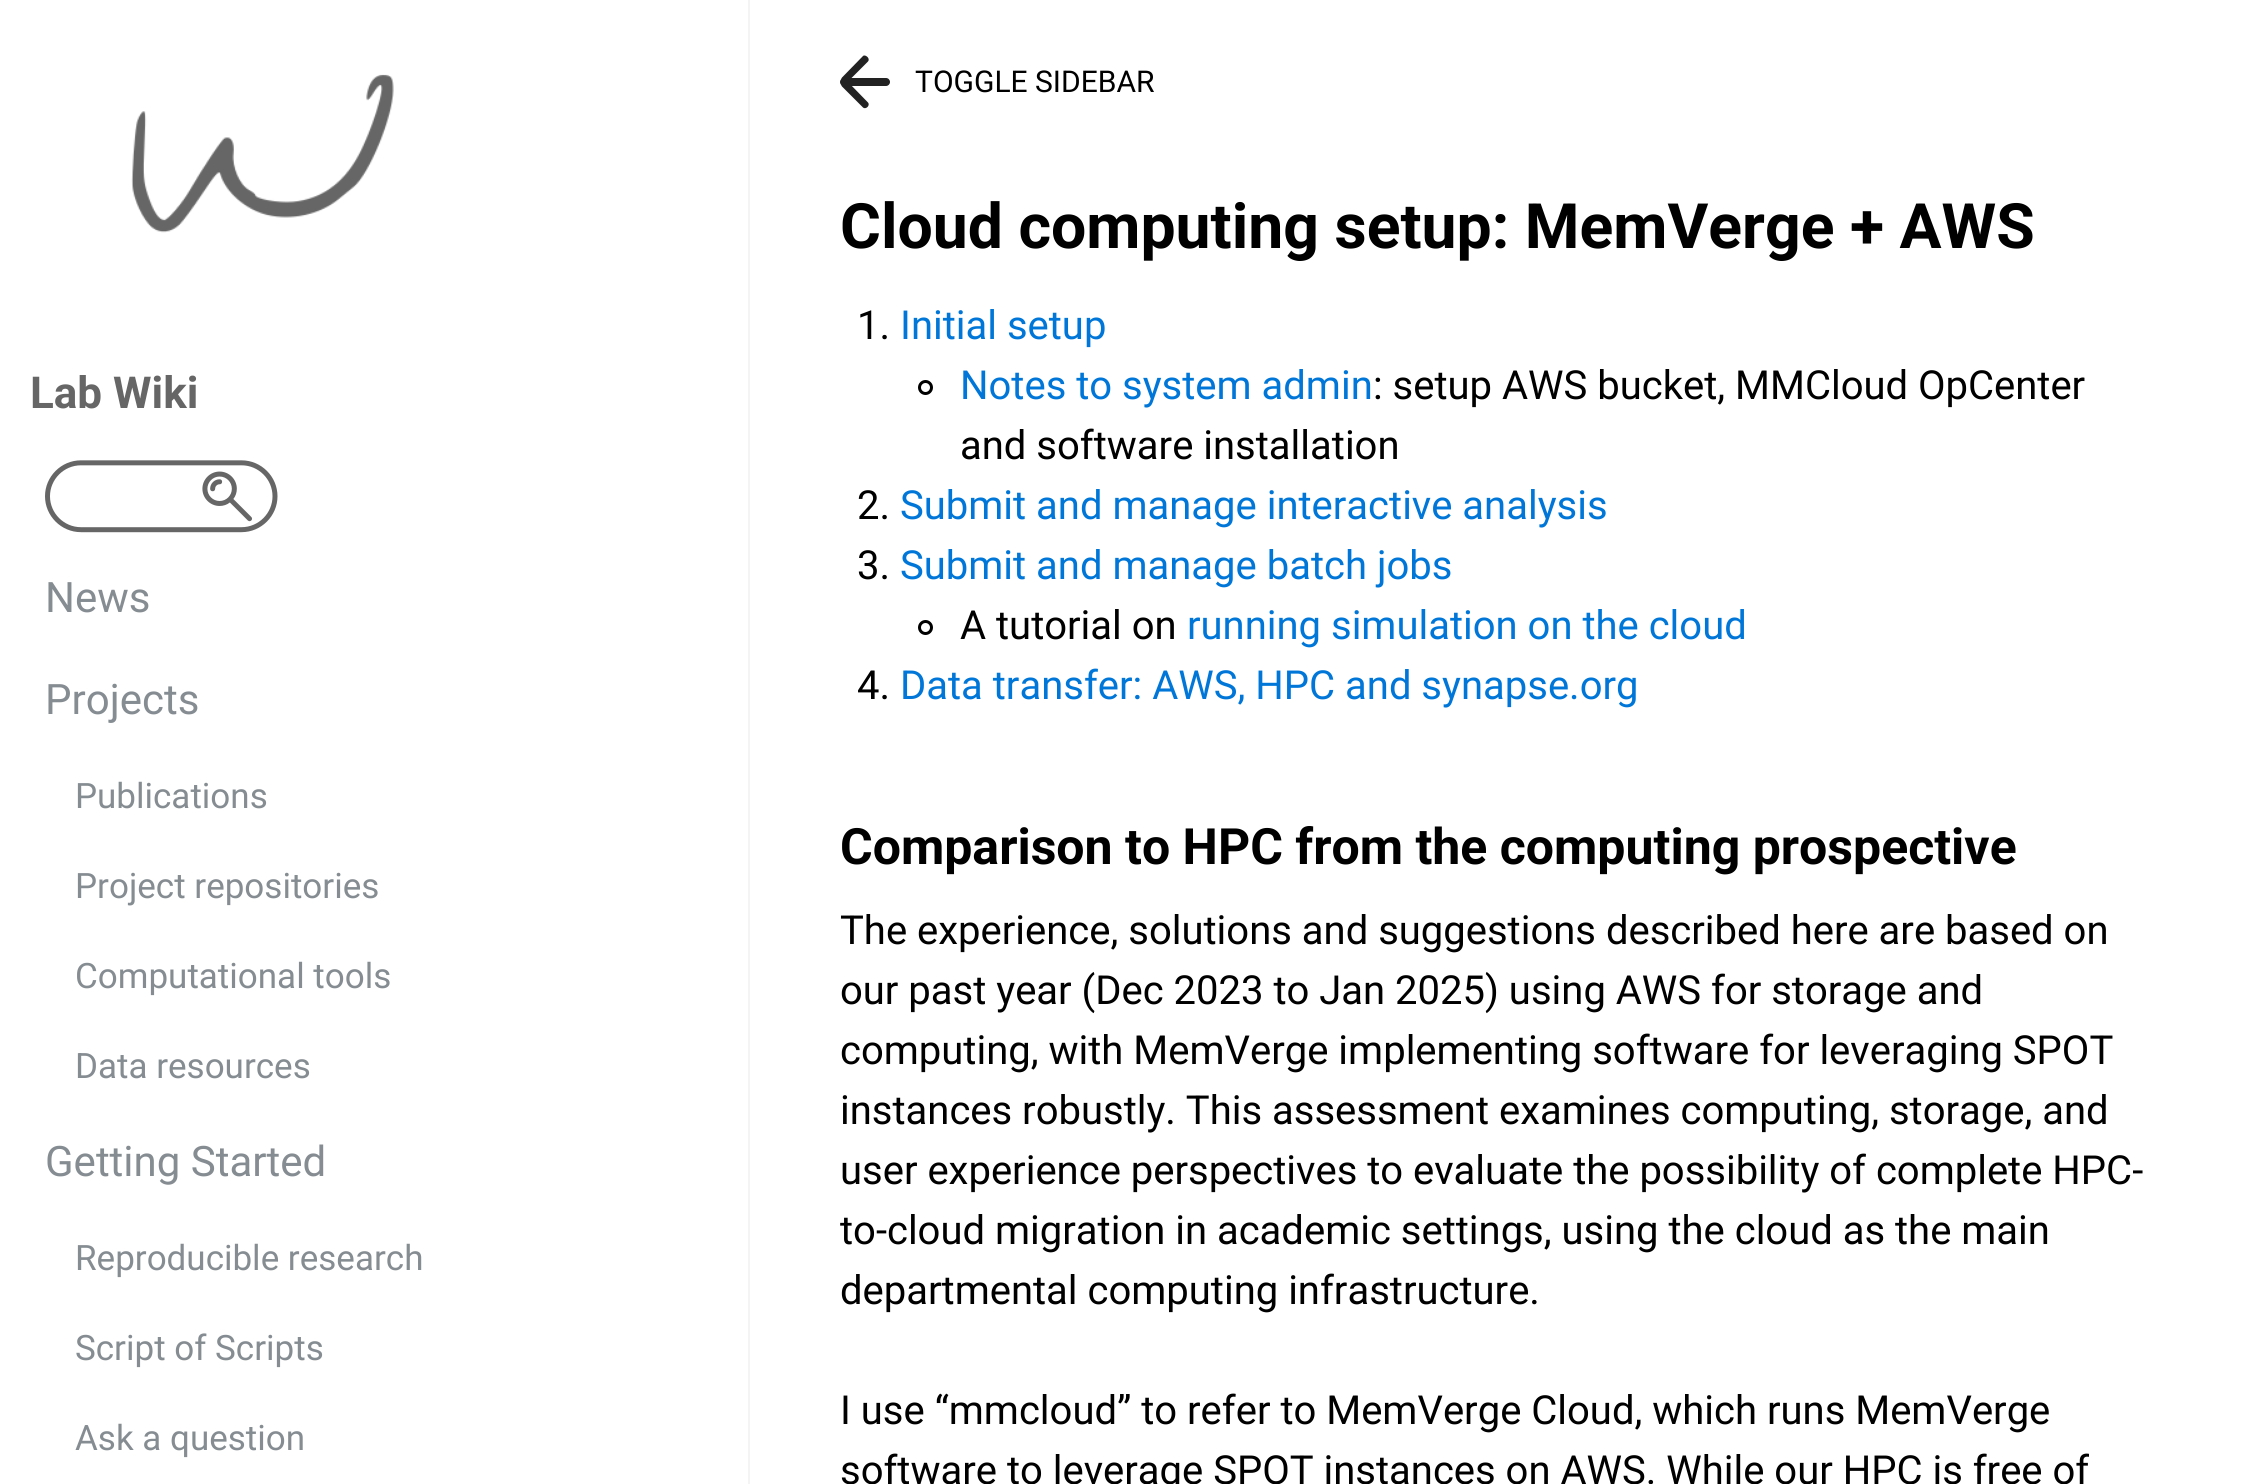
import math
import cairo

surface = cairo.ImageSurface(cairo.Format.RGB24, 2263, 1484)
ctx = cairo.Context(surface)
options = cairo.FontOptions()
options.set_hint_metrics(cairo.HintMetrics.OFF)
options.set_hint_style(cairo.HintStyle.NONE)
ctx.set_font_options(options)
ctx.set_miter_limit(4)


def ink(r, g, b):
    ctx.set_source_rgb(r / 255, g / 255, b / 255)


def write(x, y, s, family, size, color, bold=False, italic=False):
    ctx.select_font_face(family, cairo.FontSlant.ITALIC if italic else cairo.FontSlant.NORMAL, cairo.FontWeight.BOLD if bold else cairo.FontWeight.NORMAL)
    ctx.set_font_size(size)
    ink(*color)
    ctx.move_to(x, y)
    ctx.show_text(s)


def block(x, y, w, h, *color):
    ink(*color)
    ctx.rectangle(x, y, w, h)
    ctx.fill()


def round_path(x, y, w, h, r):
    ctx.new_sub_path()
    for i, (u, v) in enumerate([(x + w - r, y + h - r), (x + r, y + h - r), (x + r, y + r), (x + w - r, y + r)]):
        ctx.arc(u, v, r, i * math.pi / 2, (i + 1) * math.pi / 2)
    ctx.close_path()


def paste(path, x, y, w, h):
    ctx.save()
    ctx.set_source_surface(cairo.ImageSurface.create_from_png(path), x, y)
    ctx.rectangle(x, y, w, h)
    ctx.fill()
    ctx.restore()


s1 = dict(family="Roboto", size=44, color=(102, 102, 102), bold=True)
s2 = dict(family="Roboto", size=42, color=(134, 141, 146))
s3 = dict(family="Roboto", size=35, color=(134, 141, 146))
s4 = dict(family="Roboto", size=30, color=(0, 0, 0))
s5 = dict(family="Roboto", size=62.5, color=(0, 0, 0), bold=True)
s6 = dict(family="Roboto", size=40, color=(0, 0, 0))
s7 = dict(family="Roboto", size=40, color=(0, 119, 216))
s8 = dict(family="Roboto", size=50, color=(0, 0, 0), bold=True)

ink(255, 255, 255)
ctx.paint()
block(748, 0, 2, 1484, 244, 244, 244)
paste("pic1.png", 131, 74, 263, 159)
write(30, 408, "Lab Wiki", **s1)
paste("pic2.png", 45, 460, 233, 73)
write(45, 612, "News", **s2)
write(45, 714, "Projects", **s2)
write(75, 808, "Publications", **s3)
write(75, 898, "Project repositories", **s3)
write(75, 988, "Computational tools", **s3)
write(75, 1078, "Data resources", **s3)
write(45, 1176, "Getting Started", **s2)
write(75, 1270, "Reproducible research", **s3)
write(75, 1360, "Script of Scripts", **s3)
write(75, 1450, "Ask a question", **s3)
ink(34, 34, 34)
round_path(840, 78, 50, 8, 4)
ctx.fill()
ctx.new_path()
ctx.move_to(842, 77.5)
ctx.line_to(863, 56)
ctx.curve_to(864, 55, 866, 55.5, 867.5, 57)
ctx.curve_to(869, 58.5, 869, 60.5, 868, 61.5)
ctx.line_to(847, 82.5)
ctx.curve_to(846, 83.5, 844, 83.5, 842.5, 82)
ctx.curve_to(841, 80.5, 841, 78.5, 842, 77.5)
ctx.close_path()
ctx.fill()
ctx.new_path()
ctx.move_to(847, 81)
ctx.line_to(868, 102.5)
ctx.curve_to(869, 103.5, 869, 105.5, 867.5, 107)
ctx.curve_to(866, 108.5, 864, 108.5, 863, 107.5)
ctx.line_to(842, 86.5)
ctx.curve_to(841, 85.5, 841, 83.5, 842.5, 82)
ctx.curve_to(844, 80.5, 846, 80, 847, 81)
ctx.close_path()
ctx.fill()
write(915, 92, "TOGGLE SIDEBAR", **s4)
write(840, 248, "Cloud computing setup: MemVerge + AWS", **s5)
write(857, 339, "1.", **s6)
write(900, 339, "Initial setup", **s7)
ctx.new_path()
ctx.arc(925.5, 387.5, 6, 0, 2 * math.pi)
ink(0, 0, 0)
ctx.set_line_width(3)
ctx.stroke()
write(960, 399, "Notes to system admin", **s7)
write(1373, 399, ": setup AWS bucket, MMCloud OpCenter", **s6)
write(960, 459, "and software installation", **s6)
write(857, 519, "2.", **s6)
write(900, 519, "Submit and manage interactive analysis", **s7)
write(857, 579, "3.", **s6)
write(900, 579, "Submit and manage batch jobs", **s7)
ctx.new_path()
ctx.arc(925.5, 627.5, 6, 0, 2 * math.pi)
ink(0, 0, 0)
ctx.stroke()
write(960, 639, "A tutorial on", **s6)
write(1187, 639, "running simulation on the cloud", **s7)
write(857, 699, "4.", **s6)
write(900, 699, "Data transfer: AWS, HPC and synapse.org", **s7)
write(840, 864, "Comparison to HPC from the computing prospective", **s8)
write(840, 944, "The experience, solutions and suggestions described here are based on", **s6)
write(840, 1004, "our past year (Dec 2023 to Jan 2025) using AWS for storage and", **s6)
write(840, 1064, "computing, with MemVerge implementing software for leveraging SPOT", **s6)
write(840, 1124, "instances robustly. This assessment examines computing, storage, and", **s6)
write(840, 1184, "user experience perspectives to evaluate the possibility of complete HPC-", **s6)
write(840, 1244, "to-cloud migration in academic settings, using the cloud as the main", **s6)
write(840, 1304, "departmental computing infrastructure.", **s6)
write(840, 1424, "I use “mmcloud” to refer to MemVerge Cloud, which runs MemVerge", **s6)
write(840, 1484, "software to leverage SPOT instances on AWS. While our HPC is free of", **s6)
surface.write_to_png("screenshot.png")
